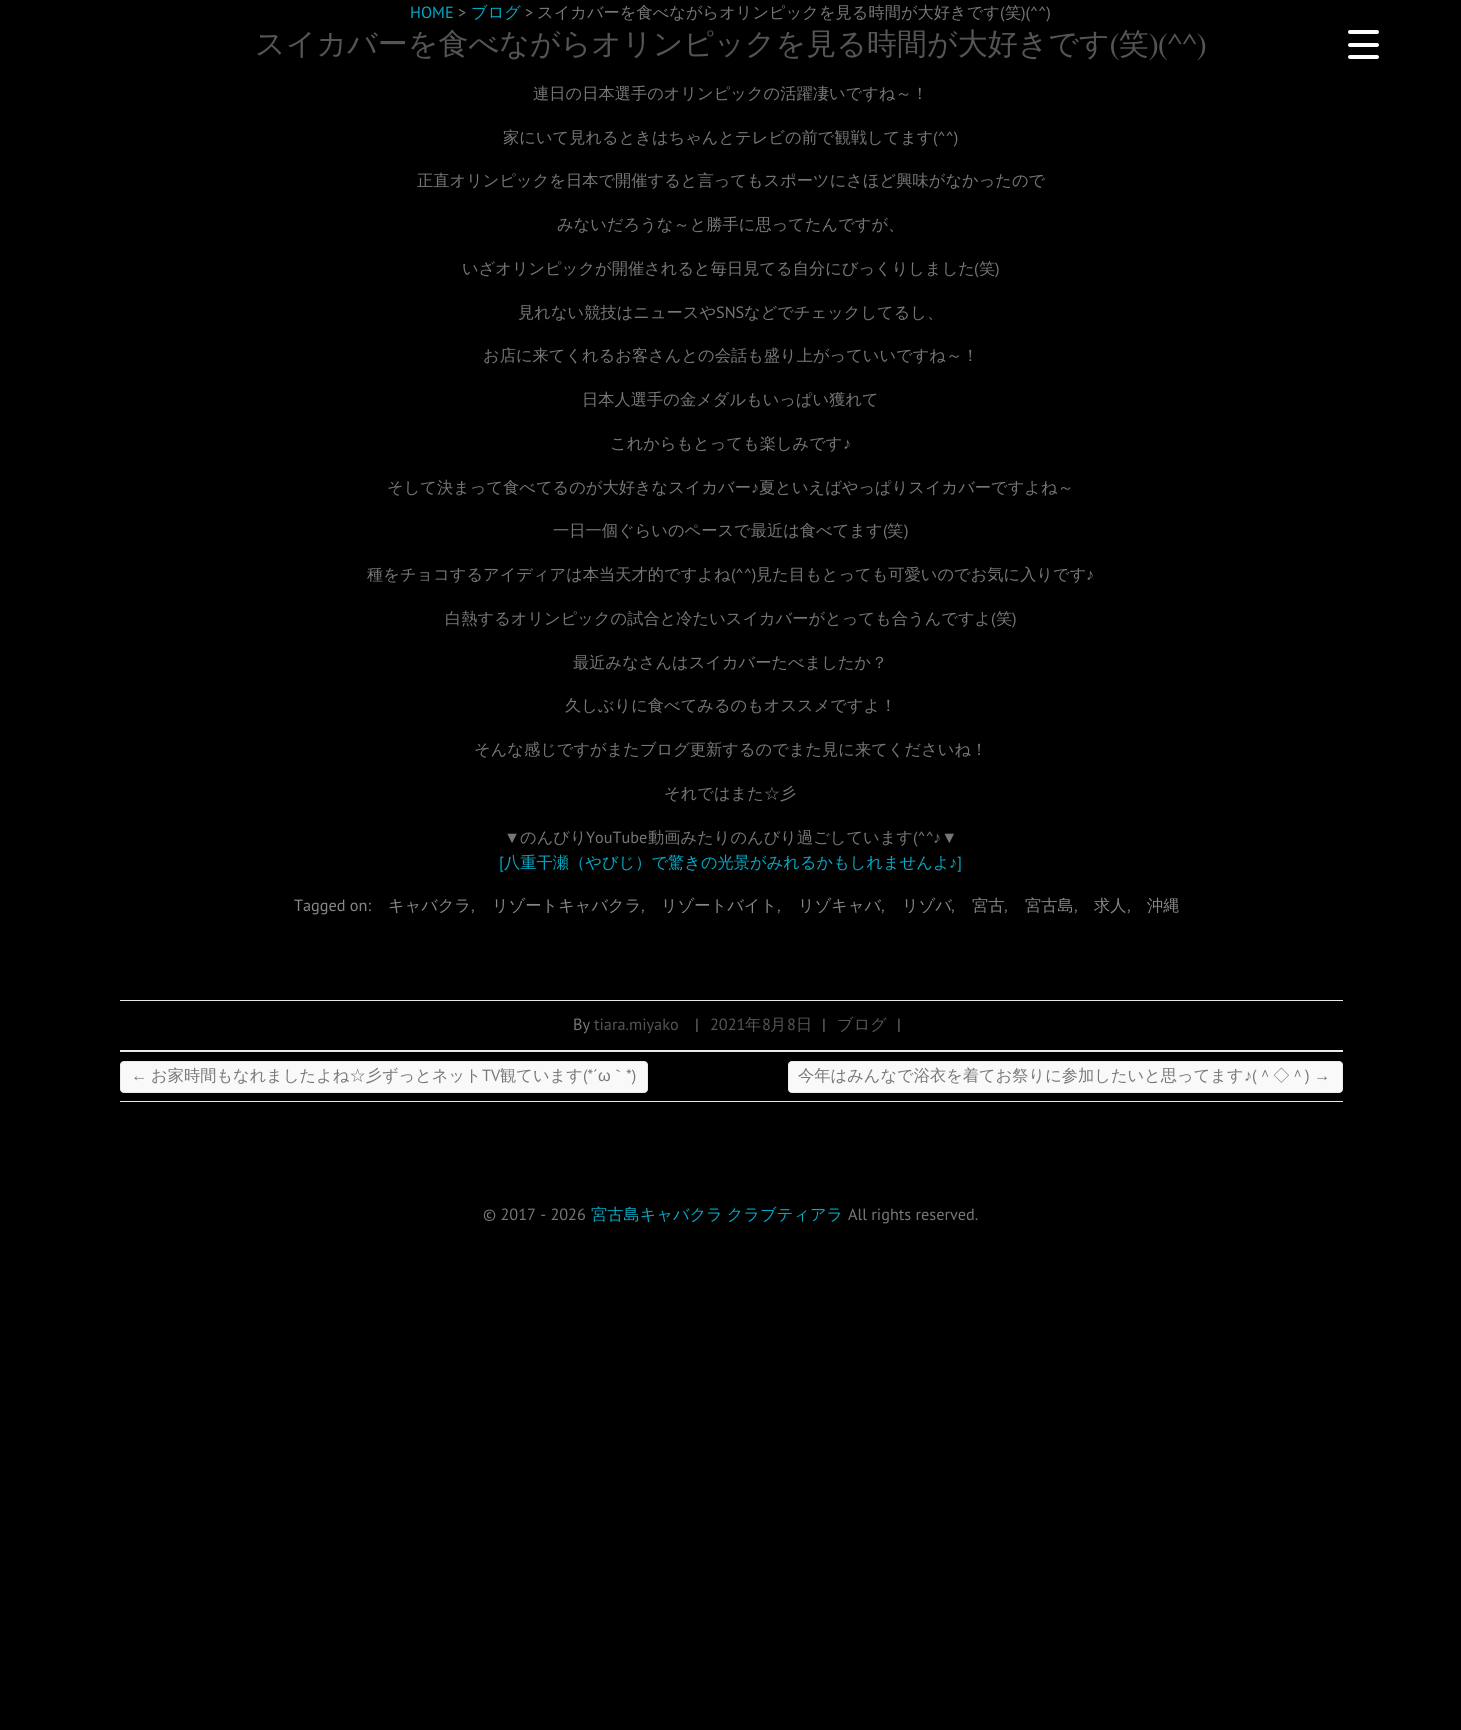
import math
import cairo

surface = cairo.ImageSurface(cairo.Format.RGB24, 1461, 1730)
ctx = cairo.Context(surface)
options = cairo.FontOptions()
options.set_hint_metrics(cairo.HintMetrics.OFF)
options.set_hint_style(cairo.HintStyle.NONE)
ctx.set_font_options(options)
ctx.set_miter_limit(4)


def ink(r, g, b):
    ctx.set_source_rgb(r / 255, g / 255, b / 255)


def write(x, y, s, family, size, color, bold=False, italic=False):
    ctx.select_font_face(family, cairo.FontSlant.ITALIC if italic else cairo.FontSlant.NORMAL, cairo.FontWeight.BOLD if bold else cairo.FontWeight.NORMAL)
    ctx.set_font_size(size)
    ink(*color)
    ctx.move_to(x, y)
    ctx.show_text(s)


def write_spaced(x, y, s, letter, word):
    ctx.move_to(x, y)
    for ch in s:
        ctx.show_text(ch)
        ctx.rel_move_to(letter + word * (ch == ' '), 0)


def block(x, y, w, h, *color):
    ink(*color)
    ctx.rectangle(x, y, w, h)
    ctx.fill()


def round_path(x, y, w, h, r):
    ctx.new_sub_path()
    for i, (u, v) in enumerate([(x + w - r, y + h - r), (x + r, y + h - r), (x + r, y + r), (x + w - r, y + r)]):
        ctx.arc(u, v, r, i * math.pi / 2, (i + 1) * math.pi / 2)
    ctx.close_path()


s1 = dict(family="PT Sans", size=16.25, color=(5, 169, 197))
s2 = dict(family="PT Sans", size=16.25, color=(119, 119, 119))
s3 = dict(family="WenQuanYi Zen Hei Medium", size=16.25, color=(5, 169, 197))
s4 = dict(family="WenQuanYi Zen Hei Medium", size=16.25, color=(119, 119, 119))
s5 = dict(family="WenQuanYi Zen Hei Medium", size=30, color=(85, 85, 85))
s6 = dict(family="Philosopher", size=30, color=(85, 85, 85))
s7 = dict(family="Liberation Sans", size=16.25, color=(119, 119, 119))
s8 = dict(family="Liberation Sans", size=16.25, color=(5, 169, 197))
s9 = dict(family="PT Sans", size=16.25, color=(136, 136, 136))
s10 = dict(family="WenQuanYi Zen Hei Medium", size=16.25, color=(136, 136, 136))
s11 = dict(family="PT Sans", size=16.25, color=(85, 85, 85))
s12 = dict(family="WenQuanYi Zen Hei Medium", size=16.25, color=(85, 85, 85))

ink(0, 0, 0)
ctx.paint()
write(410, 18, "HOME", **s1)
write(458, 18, ">", **s2)
write(471, 18, "ブログ", **s3)
write(525, 18, ">", **s2)
write(537, 18, "スイカバーを食べながらオリンピックを見る時間が大好きです", **s4)
write(1000, 18, "(", **s2)
write(1005, 18, "笑", **s4)
write(1021, 18, ")(^^)", **s2)
write(255, 54, "スイカバーを食べながらオリンピックを見る時間が大好きです 笑", **s5)
write(1110, 54, "(", **s6)
write(1149, 54, ")(^^)", **s6)
write(533, 99, "連日の日本選手のオリンピックの活躍凄いですね～！", **s4)
write(503, 143, "家にいて見れるときはちゃんとテレビの前で観戦してます", **s4)
write(933, 143, "(^^)", **s2)
write(417, 186, "正直オリンピックを日本で開催すると言ってもスポーツにさほど興味がなかったので", **s4)
write(557, 230, "みないだろうな～と勝手に思ってたんですが、", **s4)
write(462, 274, "いざオリンピックが開催されると毎日見てる自分にびっくりしました", **s4)
write(974, 274, "(", **s2)
write(979, 274, "笑", **s4)
write(995, 274, ")", **s2)
write(518, 318, "見れない競技はニュースや", **s4)
write(716, 318, "SNS", **s2)
write(744, 318, "などでチェックしてるし、", **s4)
write(483, 361, "お店に来てくれるお客さんとの会話も盛り上がっていいですね～！", **s4)
write(582, 405, "日本人選手の金メダルもいっぱい獲れて", **s4)
write(610, 449, "これからもとっても楽しみです", **s4)
write(843, 449, "♪", **s7)
write(387, 493, "そして決まって食べてるのが大好きなスイカバー", **s4)
write(751, 493, "♪", **s7)
write(759, 493, "夏といえばやっぱりスイカバーですよね～", **s4)
write(553, 536, "一日一個ぐらいのペースで最近は食べてます", **s4)
write(883, 536, "(", **s2)
write(887, 536, "笑", **s4)
write(904, 536, ")", **s2)
write(367, 580, "種をチョコするアイディアは本当天才的ですよね", **s4)
write(731, 580, "(^^)", **s2)
write(756, 580, "見た目もとっても可愛いのでお気に入りです", **s4)
write(1086, 580, "♪", **s7)
write(445, 624, "白熱するオリンピックの試合と冷たいスイカバーがとっても合うんですよ", **s4)
write(991, 624, "(", **s2)
write(996, 624, "笑", **s4)
write(1012, 624, ")", **s2)
write(573, 668, "最近みなさんはスイカバーたべましたか？", **s4)
write(565, 711, "久しぶりに食べてみるのもオススメですよ！", **s4)
write(474, 755, "そんな感じですがまたブログ更新するのでまた見に来てくださいね！", **s4)
write(664, 799, "それではまた☆彡", **s4)
write(504, 843, "▼", **s7)
write(520, 843, "のんびり", **s4)
write(586, 843, "YouTube", **s2)
write(648, 843, "動画みたりのんびり過ごしています", **s4)
write(913, 843, "(^^", **s2)
write(933, 843, "♪▼", **s7)
write(499, 868, "[", **s1)
write(504, 868, "八重干瀬（やびじ）で驚きの光景がみれるかもしれませんよ", **s3)
write(949, 868, "♪", **s8)
write(957, 868, "]", **s1)
write(294, 911, "Tagged on:", **s9)
write(388, 911, "キャバクラ", **s10)
write(471, 911, ",", **s2)
write(492, 911, "リゾートキャバクラ", **s10)
write(641, 911, ",", **s2)
write(661, 911, "リゾートバイト", **s10)
write(777, 911, ",", **s2)
write(798, 911, "リゾキャバ", **s10)
write(881, 911, ",", **s2)
write(902, 911, "リゾバ", **s10)
write(951, 911, ",", **s2)
write(972, 911, "宮古", **s10)
write(1004, 911, ",", **s2)
write(1025, 911, "宮古島", **s10)
write(1074, 911, ",", **s2)
write(1094, 911, "求人", **s10)
write(1127, 911, ",", **s2)
write(1147, 911, "沖縄", **s10)
block(120, 1000, 1223, 1, 234, 234, 234)
block(120, 1050, 1223, 2, 234, 234, 234)
write(573, 1030, "By", **s2)
write(594, 1030, "tiara.miyako", **s11)
write(695, 1030, "|", **s2)
write(710, 1030, "2021", **s11)
write(745, 1030, "年", **s12)
write(762, 1030, "8", **s11)
write(770, 1030, "月", **s12)
write(787, 1030, "8", **s11)
write(796, 1030, "日", **s12)
write(822, 1030, "|", **s2)
write(837, 1030, "ブログ", **s12)
write(897, 1030, "|", **s2)
block(120, 1101, 1223, 1, 234, 234, 234)
ink(249, 249, 249)
round_path(120.5, 1061.5, 527, 31, 3.5)
ctx.fill_preserve()
ink(234, 234, 234)
ctx.set_line_width(1)
ctx.stroke()
write(131, 1081, "←", **s7)
write(151, 1081, "お家時間もなれましたよね☆彡ずっとネット", **s4)
write(482, 1081, "TV", **s2)
write(500, 1081, "観ています", **s4)
write(583, 1081, "(*´", **s2)
write(598, 1081, "ω", **s7)
write(610, 1081, "｀", **s4)
write(626, 1081, "*)", **s2)
ink(249, 249, 249)
round_path(788.5, 1061.5, 554, 31, 3.5)
ctx.fill_preserve()
ink(234, 234, 234)
ctx.stroke()
write(798, 1081, "今年はみんなで浴衣を着てお祭りに参加したいと思ってます", **s4)
write(1244, 1081, "♪", **s7)
write(1252, 1081, "(", **s2)
write(1257, 1081, "＾◇＾", **s4)
write(1305, 1081, ")", **s2)
write(1314, 1081, "→", **s7)
write(483, 1220, "© 2017 - 2026", **s2)
ctx.select_font_face("WenQuanYi Zen Hei Medium")
ink(5, 169, 197)
write_spaced(591, 1220, "宮古島キャバクラ クラブティアラ", 0, -1)
write(848, 1220, "All rights reserved.", **s2)
ink(255, 255, 255)
round_path(1348, 43, 31, 4, 2)
ctx.fill()
round_path(1348, 30, 31, 4, 2)
ctx.fill()
round_path(1348, 55, 31, 4, 2)
ctx.fill()
surface.write_to_png("screenshot.png")
